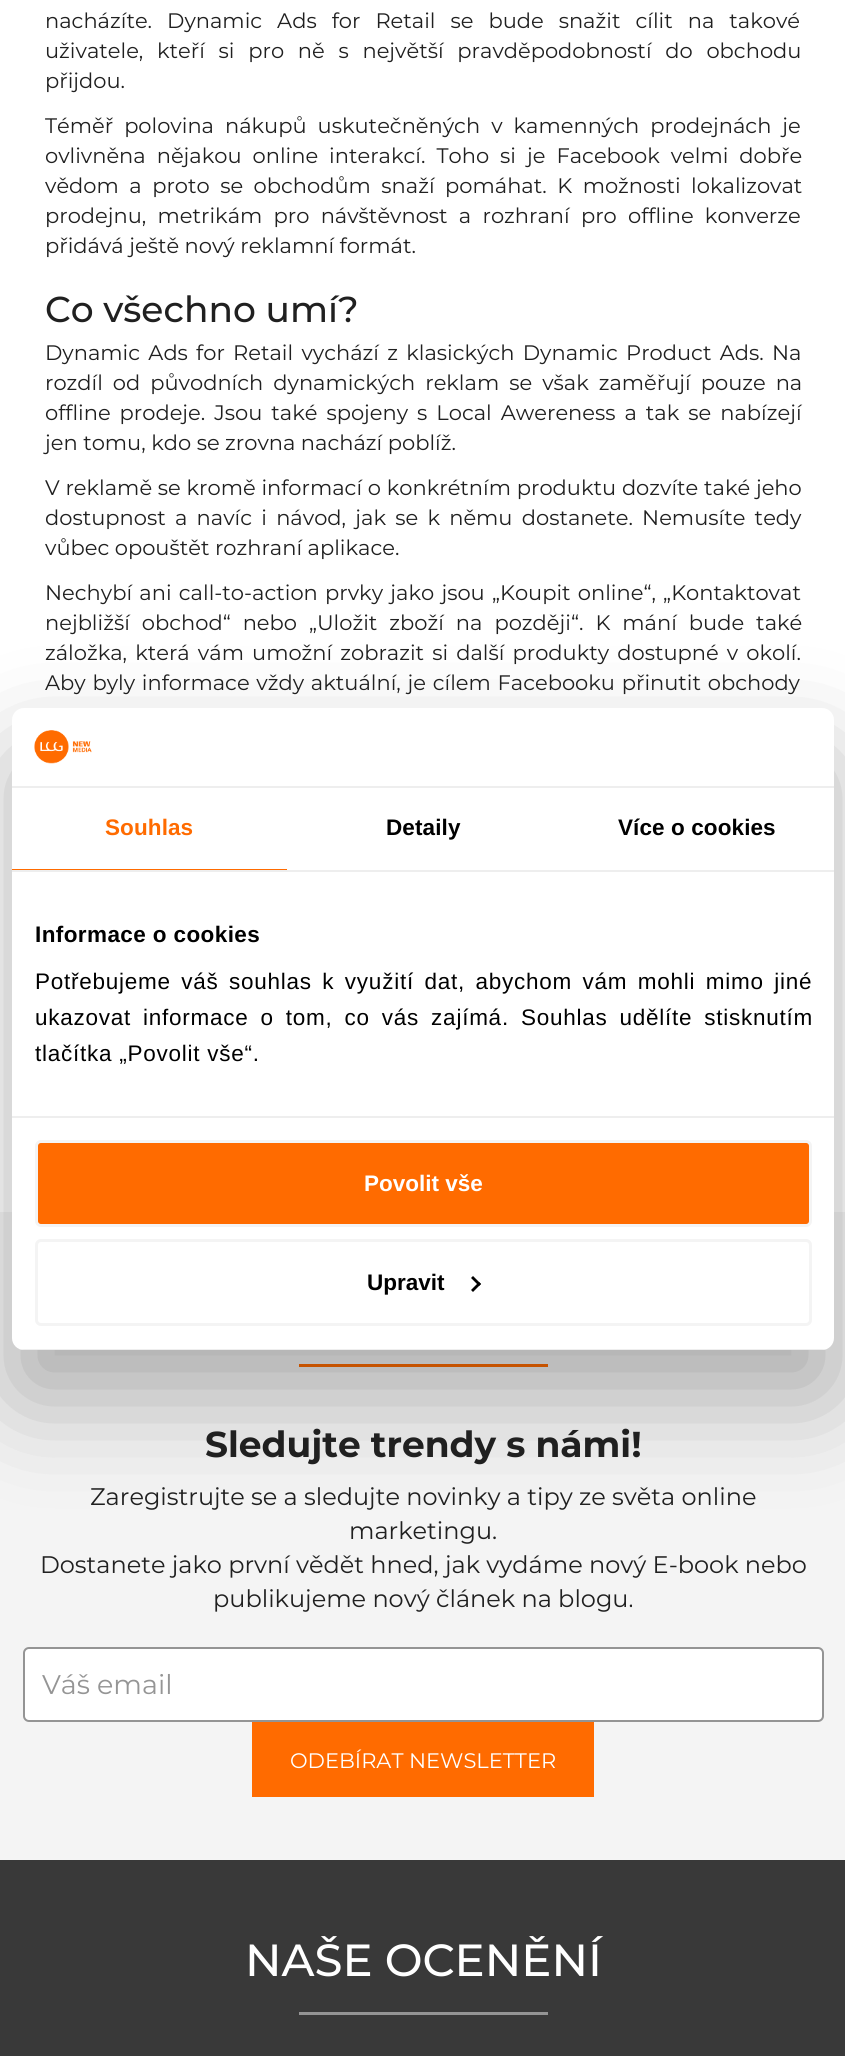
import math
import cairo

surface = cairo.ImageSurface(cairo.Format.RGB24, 845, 2056)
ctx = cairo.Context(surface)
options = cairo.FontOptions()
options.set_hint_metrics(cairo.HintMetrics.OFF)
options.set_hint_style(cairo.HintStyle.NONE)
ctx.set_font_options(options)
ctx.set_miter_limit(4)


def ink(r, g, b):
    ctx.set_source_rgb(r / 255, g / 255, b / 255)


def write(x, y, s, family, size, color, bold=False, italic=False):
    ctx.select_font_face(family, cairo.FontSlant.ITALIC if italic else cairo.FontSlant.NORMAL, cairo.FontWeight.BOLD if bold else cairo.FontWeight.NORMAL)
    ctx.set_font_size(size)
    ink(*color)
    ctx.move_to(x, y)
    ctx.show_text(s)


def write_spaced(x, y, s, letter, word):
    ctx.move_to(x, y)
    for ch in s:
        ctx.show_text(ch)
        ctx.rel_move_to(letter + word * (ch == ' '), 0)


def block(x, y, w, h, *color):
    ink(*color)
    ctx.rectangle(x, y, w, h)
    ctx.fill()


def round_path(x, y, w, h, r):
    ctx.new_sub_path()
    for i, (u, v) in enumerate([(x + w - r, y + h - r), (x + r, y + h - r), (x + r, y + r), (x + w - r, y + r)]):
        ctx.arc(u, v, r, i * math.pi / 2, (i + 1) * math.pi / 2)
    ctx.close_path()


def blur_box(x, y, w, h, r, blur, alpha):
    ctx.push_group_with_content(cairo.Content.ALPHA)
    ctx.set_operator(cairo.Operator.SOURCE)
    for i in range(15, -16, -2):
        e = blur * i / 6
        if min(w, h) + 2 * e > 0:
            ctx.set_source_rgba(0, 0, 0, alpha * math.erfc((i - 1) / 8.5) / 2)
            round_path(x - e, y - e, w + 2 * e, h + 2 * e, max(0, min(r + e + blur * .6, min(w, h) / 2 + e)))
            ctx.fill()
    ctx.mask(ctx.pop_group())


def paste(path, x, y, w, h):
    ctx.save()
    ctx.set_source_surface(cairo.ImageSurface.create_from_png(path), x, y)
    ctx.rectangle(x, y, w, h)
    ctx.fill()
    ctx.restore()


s1 = dict(family="Montserrat", size=21, color=(32, 32, 32))
s2 = dict(family="Montserrat Medium", size=36, color=(32, 32, 32))
s3 = dict(family="Liberation Sans", size=22.5, color=(255, 255, 255), bold=True)
s4 = dict(family="Liberation Sans", size=22.5, color=(0, 0, 0), bold=True)
s5 = dict(family="Montserrat", size=36, color=(32, 32, 32), bold=True)
s6 = dict(family="Montserrat", size=24, color=(32, 32, 32))
s7 = dict(family="Montserrat", size=27, color=(149, 149, 149))
s8 = dict(family="Montserrat", size=21, color=(255, 255, 255))
s9 = dict(family="Montserrat Medium", size=45, color=(255, 255, 255))

ink(255, 255, 255)
ctx.paint()
ctx.select_font_face("Montserrat")
ctx.set_font_size(21)
ink(32, 32, 32)
write_spaced(45, 28, "nacházíte. Dynamic Ads for Retail se bude snažit cílit na takové", 0, 9.5)
write_spaced(45, 58, "uživatele, kteří si pro ně s největší pravděpodobností do obchodu", 0, 8.25)
write(45, 88, "přijdou.", **s1)
write_spaced(45, 133, "Téměř polovina nákupů uskutečněných v kamenných prodejnách je", 0, 5.5)
write_spaced(45, 163, "ovlivněna nějakou online interakcí. Toho si je Facebook velmi dobře", 0, 5.5)
write_spaced(45, 193, "vědom a proto se obchodům snaží pomáhat. K možnosti lokalizovat", 0, 5)
write_spaced(45, 223, "prodejnu, metrikám pro návštěvnost a rozhraní pro offline konverze", 0, 5.75)
write(45, 253, "přidává ještě nový reklamní formát.", **s1)
write(45, 322, "Co všechno umí?", **s2)
ctx.select_font_face("Montserrat")
ctx.set_font_size(21)
write_spaced(45, 360, "Dynamic Ads for Retail vychází z klasických Dynamic Product Ads. Na", 0, 2.75)
write_spaced(45, 390, "rozdíl od původních dynamických reklam se však zaměřují pouze na", 0, 4.5)
write_spaced(45, 420, "offline prodeje. Jsou také spojeny s Local Awereness a tak se nabízejí", 0, 3.5)
write(45, 450, "jen tomu, kdo se zrovna nachází poblíž.", **s1)
write_spaced(45, 495, "V reklamě se kromě informací o konkrétním produktu dozvíte také jeho", 0, 0.25)
write_spaced(45, 525, "dostupnost a navíc i návod, jak se k němu dostanete. Nemusíte tedy", 0, 3.75)
write(45, 555, "vůbec opouštět rozhraní aplikace.", **s1)
write_spaced(45, 600, "Nechybí ani call-to-action prvky jako jsou „Koupit online“, „Kontaktovat", 0, 1.75)
write_spaced(45, 630, "nejbližší obchod“ nebo „Uložit zboží na později“. K mání bude také", 0, 6.5)
write_spaced(45, 660, "záložka, která vám umožní zobrazit si další produkty dostupné v okolí.", 0, 2.6)
write_spaced(45, 690, "Aby byly informace vždy aktuální, je cílem Facebooku přinutit obchody", 0, 1.25)
block(0, 1212, 845, 648, 244, 244, 244)
block(299, 1364, 249, 3, 255, 107, 0)
ink(0, 0, 0)
blur_box(12, 756, 822, 642, 12, 51, 0.3)
ink(255, 255, 255)
round_path(12, 708, 822, 642, 12)
ctx.fill()
block(12, 786, 822, 2, 238, 238, 238)
paste("pic1.png", 34, 730, 58, 34)
block(12, 870, 822, 2, 238, 238, 238)
block(12, 869, 275, 1, 255, 107, 0)
ctx.select_font_face("Liberation Sans", cairo.FontSlant.NORMAL, cairo.FontWeight.BOLD)
ctx.set_font_size(22.5)
write_spaced(105, 835, "Souhlas", 0.1, 0)
ink(0, 0, 0)
write_spaced(386, 835, "Detaily", 0.1, 0)
write_spaced(618, 835, "Více o cookies", 0.1, 0)
block(12, 1116, 822, 2, 238, 238, 238)
ink(0, 0, 0)
write_spaced(35, 942, "Informace o cookies", 0.4, 0)
ctx.select_font_face("Liberation Sans")
write_spaced(35, 989, "Potřebujeme váš souhlas k využití dat, abychom vám mohli mimo jiné", 0.75, 3.5)
write_spaced(35, 1025, "ukazovat informace o tom, co vás zajímá. Souhlas udělíte stisknutím", 0.75, 5)
write_spaced(35, 1061, "tlačítka „Povolit vše“.", 0.75, 0)
ctx.save()
round_path(12, 708, 822, 642, 12)
ctx.clip()
block(12, 1349, 822, 1, 238, 238, 238)
ctx.restore()
ink(255, 107, 0)
round_path(36.5, 1141.5, 774, 84, 4.5)
ctx.fill_preserve()
ink(244, 244, 244)
ctx.set_line_width(3)
ctx.stroke()
write(364, 1191, "Povolit vše", **s3)
round_path(36.5, 1240.5, 774, 84, 4.5)
ink(244, 244, 244)
ctx.stroke()
write(367, 1290, "Upravit", **s4)
ctx.new_path()
ctx.move_to(473, 1276)
ctx.line_to(481, 1284)
ctx.line_to(479, 1286)
ctx.line_to(471, 1278)
ctx.close_path()
ctx.fill()
ctx.new_path()
ctx.move_to(479, 1282)
ctx.line_to(481, 1284)
ctx.line_to(473, 1292)
ctx.line_to(471, 1290)
ctx.close_path()
ctx.fill()
write(205, 1457, "Sledujte trendy s námi!", **s5)
write(90, 1505, "Zaregistrujte se a sledujte novinky a tipy ze světa online", **s6)
write(349, 1539, "marketingu.", **s6)
write(40, 1573, "Dostanete jako první vědět hned, jak vydáme nový E-book nebo", **s6)
write(213, 1607, "publikujeme nový článek na blogu.", **s6)
ink(255, 255, 255)
round_path(24, 1648, 799, 73, 5)
ctx.fill_preserve()
ink(148, 148, 148)
ctx.set_line_width(2)
ctx.stroke()
write(42, 1694, "Váš email", **s7)
block(252, 1722, 342, 75, 255, 107, 0)
write(290, 1768, "ODEBÍRAT NEWSLETTER", **s8)
block(0, 1860, 845, 196, 57, 57, 57)
write(245, 1976, "NAŠE OCENĚNÍ", **s9)
block(299, 2012, 249, 3, 148, 148, 148)
surface.write_to_png("screenshot.png")
